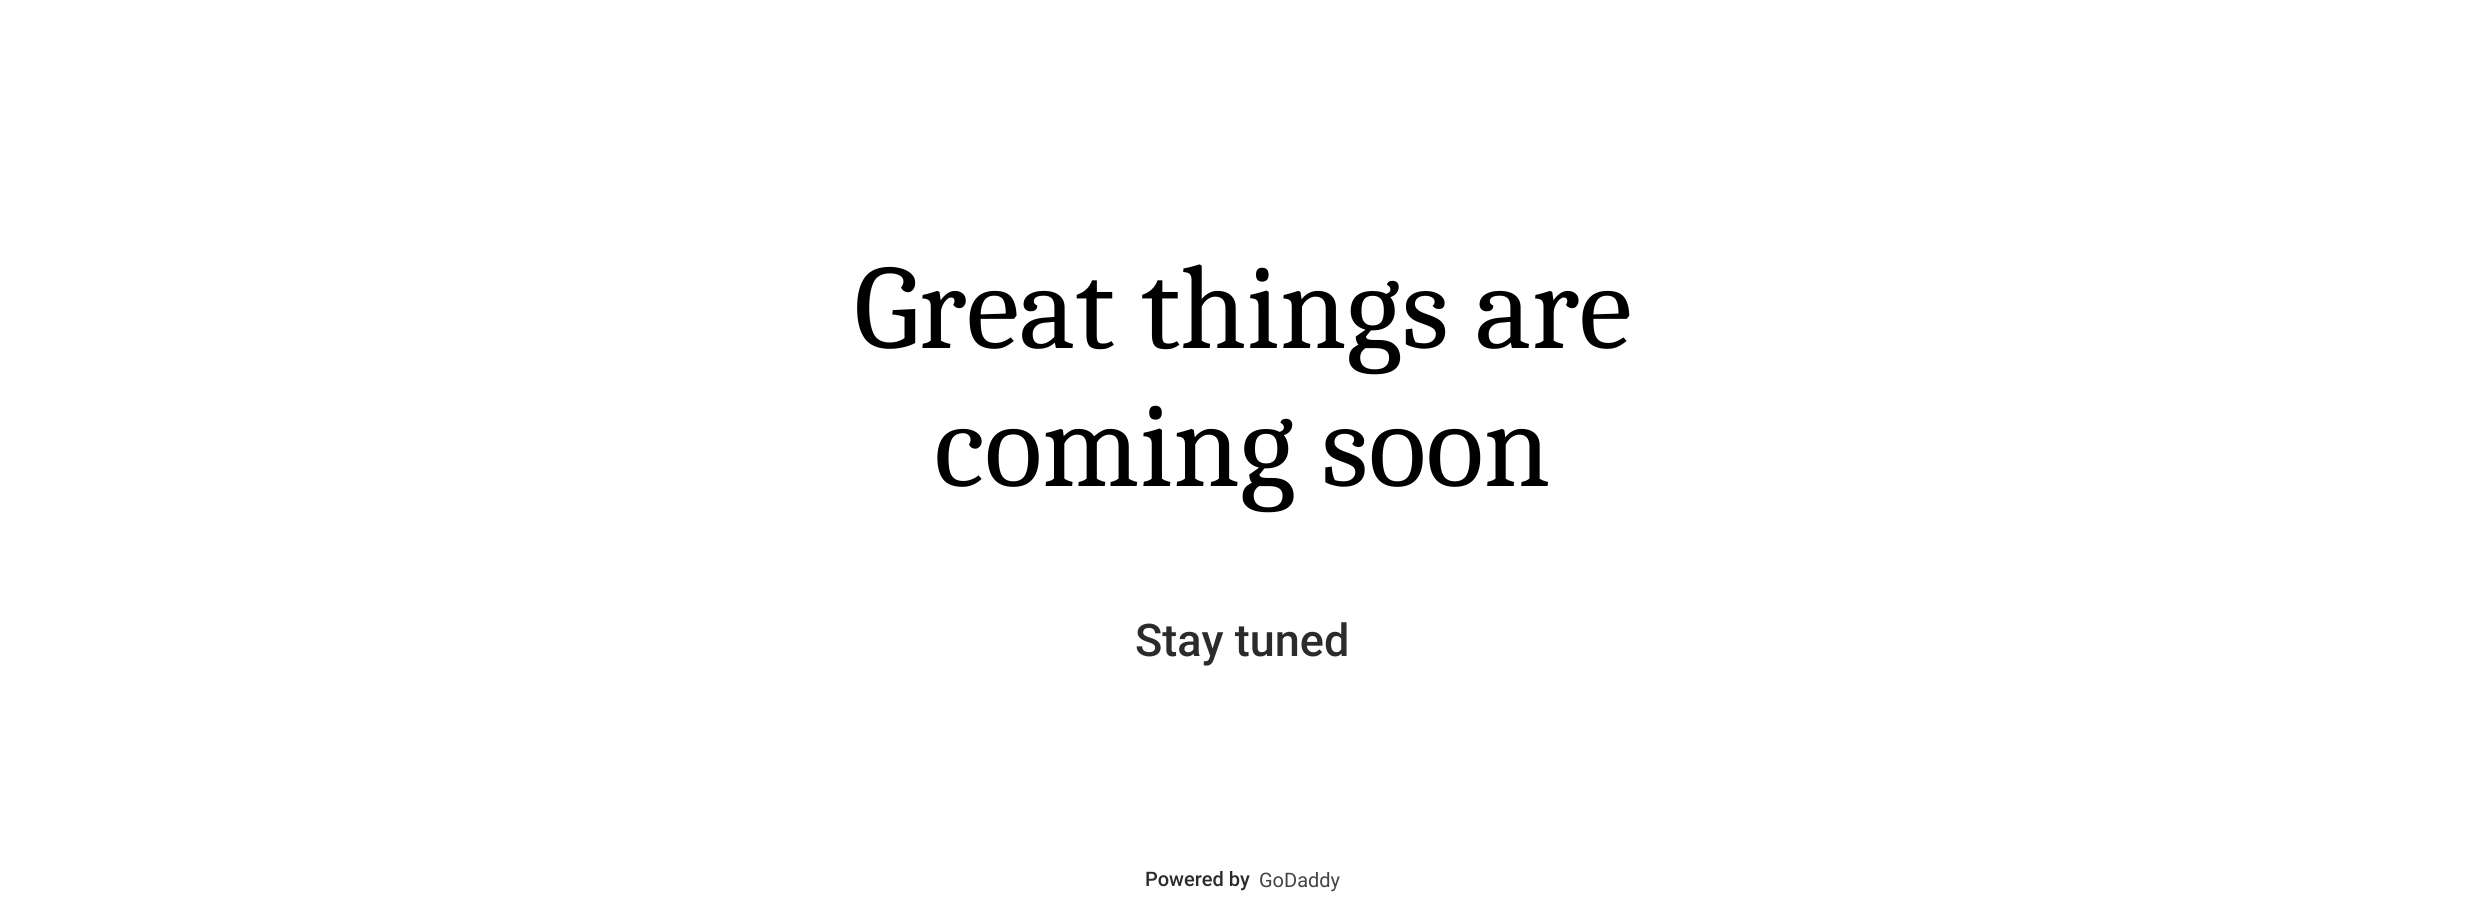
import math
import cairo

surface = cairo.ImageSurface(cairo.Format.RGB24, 2485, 914)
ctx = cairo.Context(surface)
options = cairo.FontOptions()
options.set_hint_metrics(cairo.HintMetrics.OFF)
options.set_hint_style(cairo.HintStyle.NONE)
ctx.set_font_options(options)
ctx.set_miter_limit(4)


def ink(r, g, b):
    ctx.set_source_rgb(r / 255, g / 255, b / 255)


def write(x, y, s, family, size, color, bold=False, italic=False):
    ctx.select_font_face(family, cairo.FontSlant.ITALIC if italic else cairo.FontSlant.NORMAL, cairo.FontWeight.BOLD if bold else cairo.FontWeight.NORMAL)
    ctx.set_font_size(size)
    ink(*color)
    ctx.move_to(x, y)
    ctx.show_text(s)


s1 = dict(family="Caladea", size=120, color=(0, 0, 0))
s2 = dict(family="Roboto Medium", size=45, color=(43, 43, 43))
s3 = dict(family="Roboto Medium", size=20, color=(43, 43, 43))
s4 = dict(family="Roboto", size=20, color=(68, 68, 68))

ink(255, 255, 255)
ctx.paint()
write(854, 348, "Great things are", **s1)
write(934, 486, "coming soon", **s1)
write(1135, 656, "Stay tuned", **s2)
write(1145, 886, "Powered by", **s3)
write(1259, 887, "GoDaddy", **s4)
surface.write_to_png("screenshot.png")
